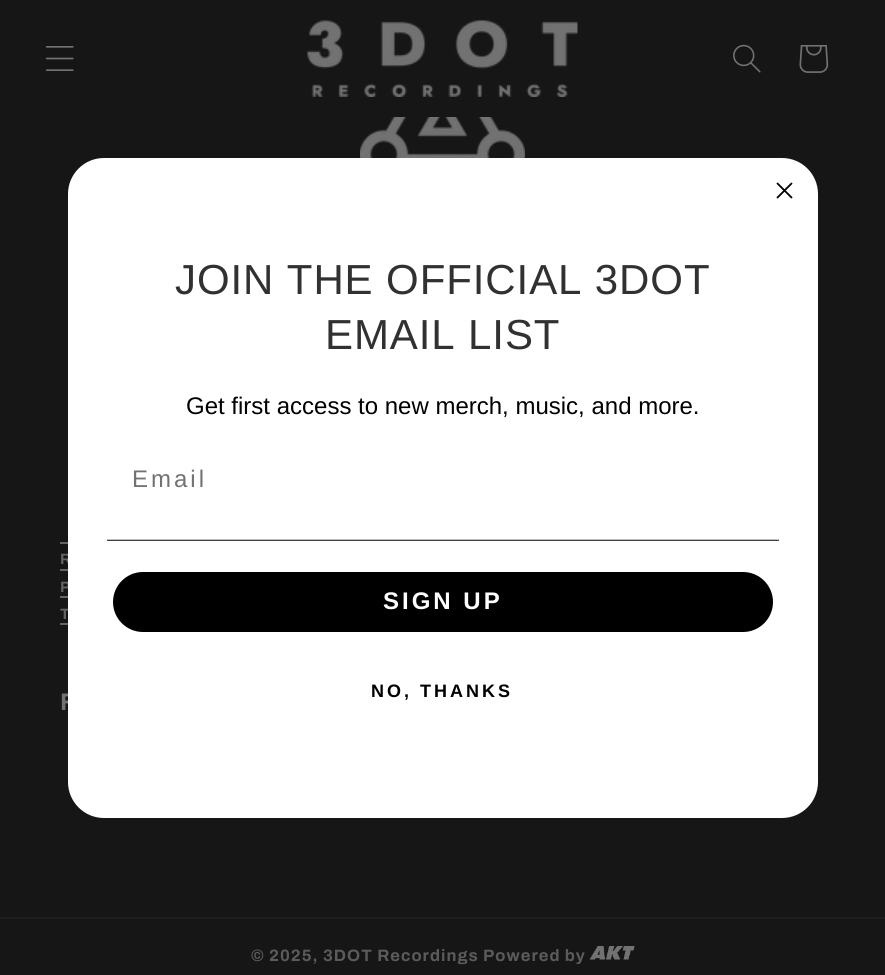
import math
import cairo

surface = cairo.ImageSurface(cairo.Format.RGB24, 885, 975)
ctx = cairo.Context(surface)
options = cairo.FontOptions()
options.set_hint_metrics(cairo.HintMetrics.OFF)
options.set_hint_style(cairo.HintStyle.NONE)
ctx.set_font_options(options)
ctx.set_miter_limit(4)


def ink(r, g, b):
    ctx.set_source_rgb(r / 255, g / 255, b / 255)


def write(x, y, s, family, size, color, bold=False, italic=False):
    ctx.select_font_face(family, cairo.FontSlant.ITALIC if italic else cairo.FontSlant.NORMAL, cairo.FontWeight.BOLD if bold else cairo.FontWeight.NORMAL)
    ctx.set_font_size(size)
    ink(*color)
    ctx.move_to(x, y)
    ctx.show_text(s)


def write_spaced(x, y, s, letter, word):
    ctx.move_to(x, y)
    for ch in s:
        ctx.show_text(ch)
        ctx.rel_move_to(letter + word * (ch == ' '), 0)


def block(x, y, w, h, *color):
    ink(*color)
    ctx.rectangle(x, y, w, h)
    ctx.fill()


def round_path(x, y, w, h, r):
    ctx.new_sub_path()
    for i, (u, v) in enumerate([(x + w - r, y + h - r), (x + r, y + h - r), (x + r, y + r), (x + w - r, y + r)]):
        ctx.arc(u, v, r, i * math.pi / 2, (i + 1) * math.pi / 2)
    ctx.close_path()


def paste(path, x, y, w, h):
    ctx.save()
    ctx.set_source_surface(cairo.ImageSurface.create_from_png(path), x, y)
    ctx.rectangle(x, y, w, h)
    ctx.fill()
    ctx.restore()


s1 = dict(family="Liberation Sans", size=24, color=(0, 0, 0))

ink(22, 22, 22)
ctx.paint()
paste("pic1.png", 45, 46, 29, 25)
paste("pic2.png", 307, 20, 271, 77)
paste("pic3.png", 733, 44, 28, 29)
paste("pic4.png", 799, 45, 30, 28)
ctx.select_font_face("Archivo", cairo.FontSlant.NORMAL, cairo.FontWeight.BOLD)
ctx.set_font_size(15)
ink(100, 100, 100)
write_spaced(60, 564, "R", 0.9, 0)
write_spaced(60, 592, "P", 0.9, 0)
write_spaced(60, 619, "T", 0.9, 0)
ctx.set_font_size(24)
ink(114, 114, 114)
write_spaced(60, 710, "F", 0.9, 0)
ink(255, 255, 255)
round_path(68, 158, 750, 660, 36)
ctx.fill()
ctx.new_path()
ctx.move_to(777.5, 183.5)
ctx.line_to(791.5, 197.5)
ctx.move_to(777.5, 197.5)
ctx.line_to(791.5, 183.5)
ctx.close_path()
ink(0, 0, 0)
ctx.set_line_width(1.8)
ctx.set_line_cap(cairo.LineCap.ROUND)
ctx.set_line_join(cairo.LineJoin.ROUND)
ctx.stroke()
ctx.select_font_face("Liberation Sans")
ctx.set_font_size(42)
ink(49, 49, 49)
write_spaced(175, 294, "JOIN THE OFFICIAL 3DOT", 0.9, 0)
write_spaced(325, 349, "EMAIL LIST", 0.9, 0)
write(186, 414, "Get first access to new merch, music, and more.", **s1)
ink(114, 114, 114)
write_spaced(132, 487, "Email", 3, 0)
paste("pic5.png", 107, 539, 672, 2)
ink(0, 0, 0)
round_path(113, 572, 660, 60, 30)
ctx.fill()
ctx.select_font_face("Liberation Sans", cairo.FontSlant.NORMAL, cairo.FontWeight.BOLD)
ink(255, 255, 255)
write_spaced(383, 609, "SIGN UP", 3, 0)
ctx.set_font_size(18)
ink(0, 0, 0)
write_spaced(371, 697, "NO, THANKS", 3, 0)
paste("pic6.png", 360, 117, 165, 41)
block(60, 542, 8, 2, 100, 100, 100)
block(60, 569, 8, 2, 100, 100, 100)
block(60, 596, 8, 2, 100, 100, 100)
block(60, 623, 8, 2, 100, 100, 100)
block(0, 917, 885, 2, 29, 29, 29)
ctx.select_font_face("Archivo", cairo.FontSlant.NORMAL, cairo.FontWeight.BOLD)
ctx.set_font_size(16.5)
ink(91, 91, 91)
write_spaced(251, 961, "© 2025, 3DOT Recordings Powered by", 1.05, 0)
paste("pic7.png", 589, 946, 46, 14)
surface.write_to_png("screenshot.png")
